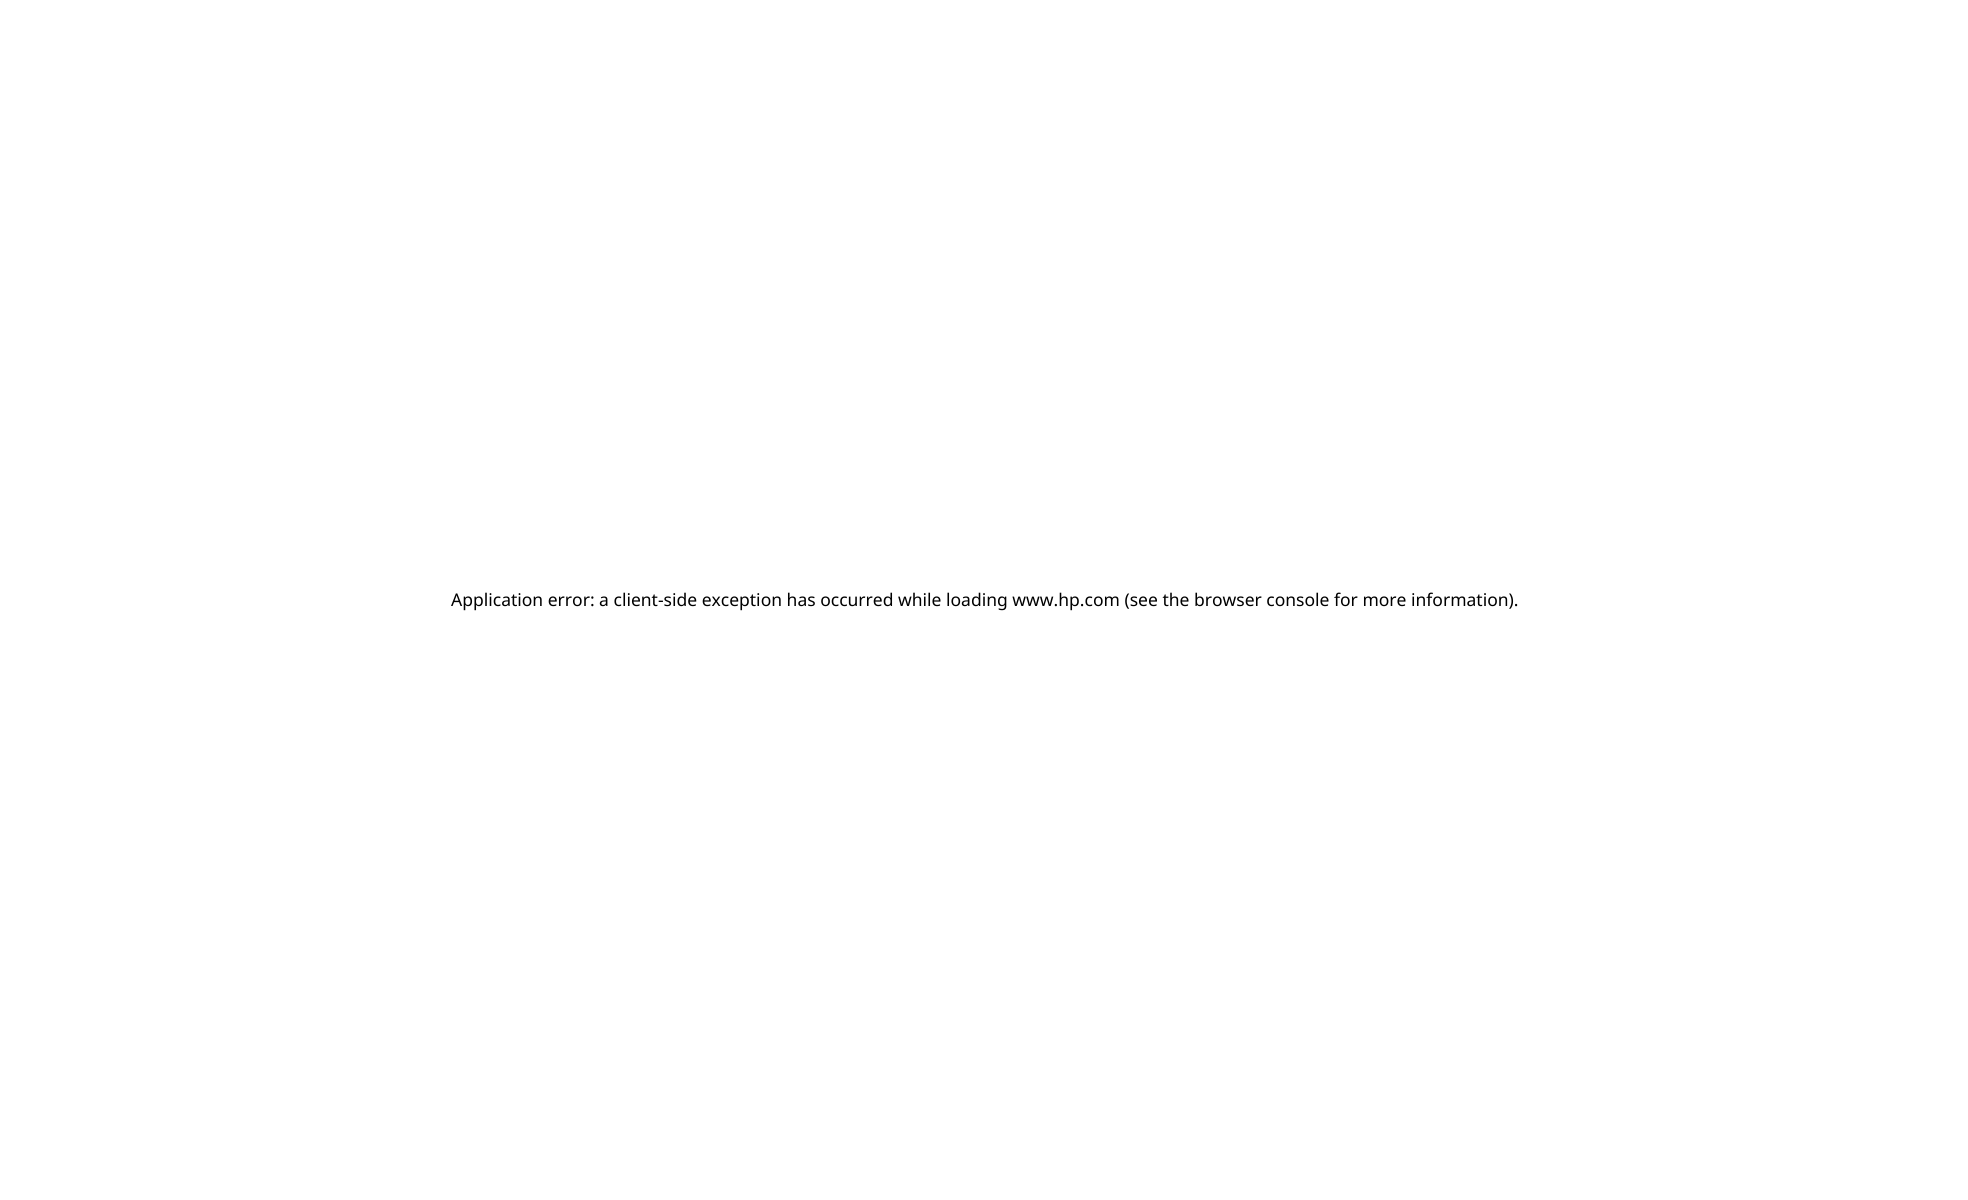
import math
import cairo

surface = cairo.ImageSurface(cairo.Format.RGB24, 1968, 1200)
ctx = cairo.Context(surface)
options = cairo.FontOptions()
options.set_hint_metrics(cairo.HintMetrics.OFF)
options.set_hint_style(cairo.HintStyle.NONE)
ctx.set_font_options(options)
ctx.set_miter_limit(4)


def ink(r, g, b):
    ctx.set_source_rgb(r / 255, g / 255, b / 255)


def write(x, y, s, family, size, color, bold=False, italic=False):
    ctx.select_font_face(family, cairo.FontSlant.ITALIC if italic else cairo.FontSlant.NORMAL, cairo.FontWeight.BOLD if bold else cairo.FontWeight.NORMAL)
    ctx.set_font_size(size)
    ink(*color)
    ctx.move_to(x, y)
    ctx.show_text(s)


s1 = dict(family="Noto Sans", size=17.5, color=(0, 0, 0))

ink(255, 255, 255)
ctx.paint()
write(451, 606, "Application error: a client-side exception has occurred while loading www.hp.com (see the browser console for more information).", **s1)
surface.write_to_png("screenshot.png")
